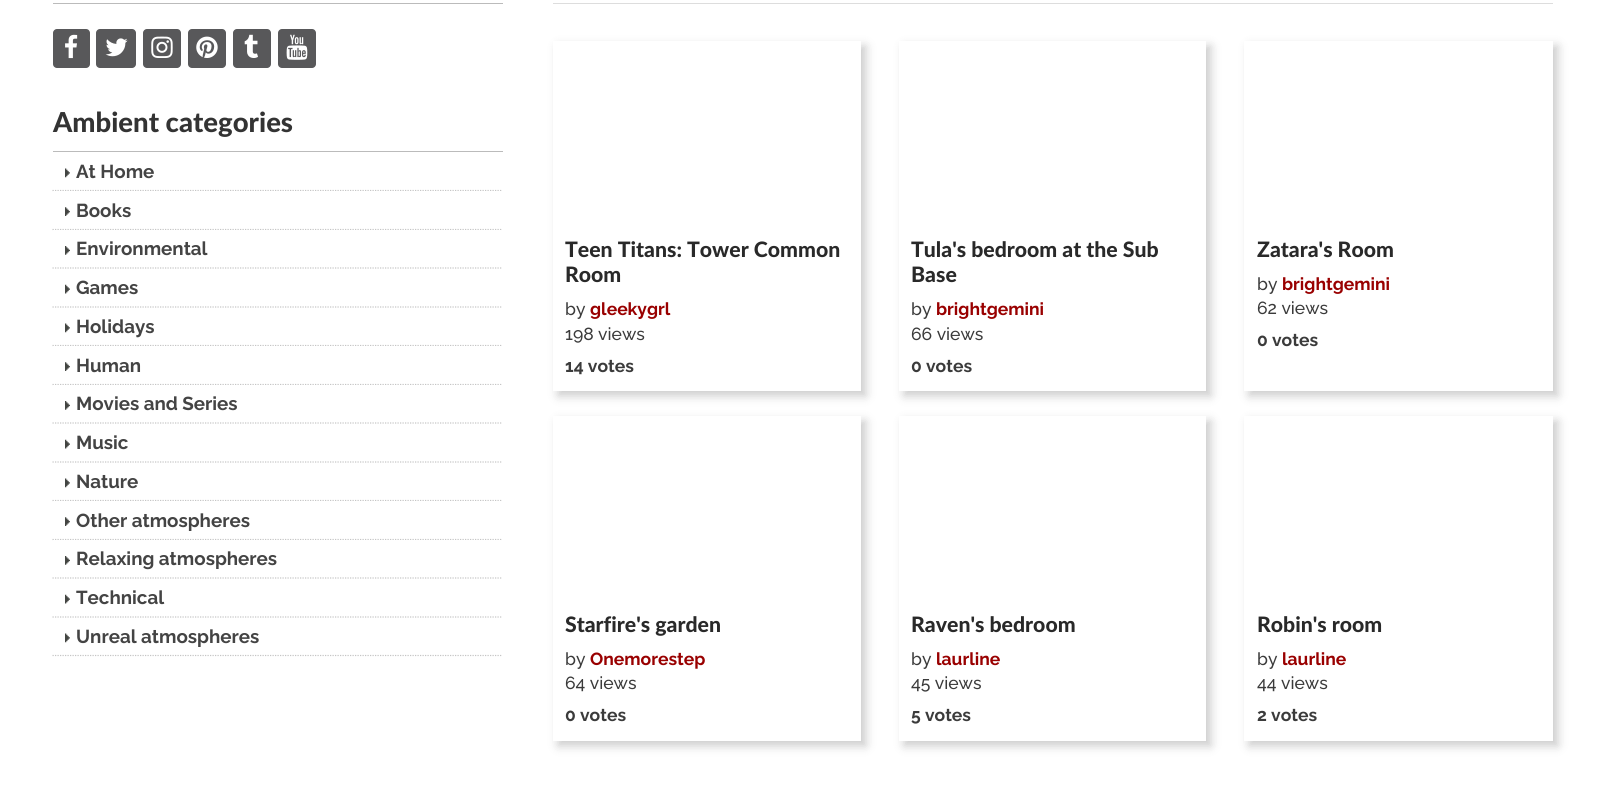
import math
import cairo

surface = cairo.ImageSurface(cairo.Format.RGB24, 1604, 800)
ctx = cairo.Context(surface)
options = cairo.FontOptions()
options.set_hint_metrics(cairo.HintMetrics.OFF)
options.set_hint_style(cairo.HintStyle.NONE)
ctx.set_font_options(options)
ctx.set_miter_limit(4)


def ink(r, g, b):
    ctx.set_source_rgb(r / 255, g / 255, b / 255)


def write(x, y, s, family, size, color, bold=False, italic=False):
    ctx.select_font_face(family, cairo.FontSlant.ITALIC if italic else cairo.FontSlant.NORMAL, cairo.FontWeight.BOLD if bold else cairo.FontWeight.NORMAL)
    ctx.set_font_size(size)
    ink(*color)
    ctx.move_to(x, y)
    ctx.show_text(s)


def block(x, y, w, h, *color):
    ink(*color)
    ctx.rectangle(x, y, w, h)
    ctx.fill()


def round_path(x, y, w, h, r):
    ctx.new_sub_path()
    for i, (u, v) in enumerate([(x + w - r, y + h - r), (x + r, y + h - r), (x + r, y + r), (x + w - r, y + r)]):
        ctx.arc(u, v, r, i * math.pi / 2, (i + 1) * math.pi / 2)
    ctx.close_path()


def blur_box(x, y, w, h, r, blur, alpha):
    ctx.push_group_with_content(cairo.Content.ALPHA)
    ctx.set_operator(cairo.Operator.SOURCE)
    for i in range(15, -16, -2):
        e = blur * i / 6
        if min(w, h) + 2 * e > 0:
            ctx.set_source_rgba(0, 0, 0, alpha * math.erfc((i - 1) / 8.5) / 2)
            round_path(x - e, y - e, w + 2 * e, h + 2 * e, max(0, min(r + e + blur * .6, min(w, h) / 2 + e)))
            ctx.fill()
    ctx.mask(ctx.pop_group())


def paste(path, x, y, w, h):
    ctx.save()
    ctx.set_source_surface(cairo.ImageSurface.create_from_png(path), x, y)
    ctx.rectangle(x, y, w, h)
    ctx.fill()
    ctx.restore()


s1 = dict(family="Lato Black", size=27.5, color=(51, 51, 51))
s2 = dict(family="Raleway", size=18.75, color=(68, 68, 68), bold=True)
s3 = dict(family="Lato Black", size=21.25, color=(41, 41, 41))
s4 = dict(family="Raleway Medium", size=17.5, color=(59, 59, 59))
s5 = dict(family="Raleway", size=17.5, color=(153, 0, 0), bold=True)
s6 = dict(family="Raleway", size=17.5, color=(59, 59, 59), bold=True)

ink(255, 255, 255)
ctx.paint()
block(53, 3, 450, 1, 187, 187, 187)
ink(88, 88, 90)
round_path(53, 29, 37, 39, 4)
ctx.fill()
paste("pic1.png", 65, 34, 13, 25)
round_path(96, 29, 40, 39, 4)
ctx.fill()
paste("pic2.png", 105, 38, 23, 19)
round_path(143, 29, 38, 39, 4)
ctx.fill()
paste("pic3.png", 151, 36, 22, 22)
round_path(188, 29, 38, 39, 4)
ctx.fill()
paste("pic4.png", 196, 36, 22, 22)
round_path(233, 29, 38, 39, 4)
ctx.fill()
paste("pic5.png", 244, 34, 14, 24)
round_path(278, 29, 38, 39, 4)
ctx.fill()
paste("pic6.png", 286, 34, 22, 26)
block(53, 151, 450, 1, 187, 187, 187)
write(53, 132, "Ambient categories", **s1)
ctx.new_path()
ctx.move_to(52.5, 190.5)
ctx.line_to(502.5, 190.5)
ink(197, 197, 197)
ctx.set_line_width(1.2)
ctx.set_dash([1.25, 1.25])
ctx.stroke()
paste("pic7.png", 65, 168, 5, 10)
write(76, 178, "At Home", **s2)
block(53, 191, 448, 1, 255, 255, 255)
ctx.new_path()
ctx.move_to(52.5, 229.5)
ctx.line_to(502.5, 229.5)
ink(197, 197, 197)
ctx.stroke()
paste("pic8.png", 65, 207, 5, 9)
write(76, 217, "Books", **s2)
block(53, 230, 448, 1, 255, 255, 255)
ctx.new_path()
ctx.move_to(52.5, 268)
ctx.line_to(502.5, 268)
ink(197, 197, 197)
ctx.stroke()
paste("pic9.png", 65, 246, 5, 9)
write(76, 255, "Environmental", **s2)
ctx.new_path()
ctx.move_to(52.5, 307)
ctx.line_to(502.5, 307)
ink(197, 197, 197)
ctx.stroke()
paste("pic10.png", 65, 284, 5, 10)
write(76, 294, "Games", **s2)
ctx.new_path()
ctx.move_to(52.5, 345.5)
ctx.line_to(502.5, 345.5)
ink(197, 197, 197)
ctx.stroke()
paste("pic7.png", 65, 323, 5, 10)
write(76, 333, "Holidays", **s2)
block(53, 346, 448, 1, 255, 255, 255)
ctx.new_path()
ctx.move_to(52.5, 384.5)
ctx.line_to(502.5, 384.5)
ink(197, 197, 197)
ctx.stroke()
paste("pic8.png", 65, 362, 5, 9)
write(76, 372, "Human", **s2)
block(53, 385, 448, 1, 255, 255, 255)
ctx.new_path()
ctx.move_to(52.5, 423)
ctx.line_to(502.5, 423)
ink(197, 197, 197)
ctx.stroke()
paste("pic9.png", 65, 401, 5, 9)
write(76, 410, "Movies and Series", **s2)
ctx.new_path()
ctx.move_to(52.5, 462)
ctx.line_to(502.5, 462)
ink(197, 197, 197)
ctx.stroke()
paste("pic10.png", 65, 439, 5, 10)
write(76, 449, "Music", **s2)
ctx.new_path()
ctx.move_to(52.5, 500.5)
ctx.line_to(502.5, 500.5)
ink(197, 197, 197)
ctx.stroke()
paste("pic7.png", 65, 478, 5, 10)
write(76, 488, "Nature", **s2)
block(53, 501, 448, 1, 255, 255, 255)
ctx.new_path()
ctx.move_to(52.5, 539.5)
ctx.line_to(502.5, 539.5)
ink(197, 197, 197)
ctx.stroke()
paste("pic8.png", 65, 517, 5, 9)
write(76, 527, "Other atmospheres", **s2)
block(53, 540, 448, 1, 255, 255, 255)
ctx.new_path()
ctx.move_to(52.5, 578)
ctx.line_to(502.5, 578)
ink(197, 197, 197)
ctx.stroke()
paste("pic9.png", 65, 556, 5, 9)
write(76, 565, "Relaxing atmospheres", **s2)
ctx.new_path()
ctx.move_to(52.5, 617)
ctx.line_to(502.5, 617)
ink(197, 197, 197)
ctx.stroke()
paste("pic10.png", 65, 594, 5, 10)
write(76, 604, "Technical", **s2)
ctx.new_path()
ctx.move_to(52.5, 655.5)
ctx.line_to(502.5, 655.5)
ink(197, 197, 197)
ctx.stroke()
paste("pic7.png", 65, 633, 5, 10)
write(76, 643, "Unreal atmospheres", **s2)
block(553, 3, 1000, 1, 221, 221, 221)
ctx.save()
ctx.set_fill_rule(cairo.FillRule.EVEN_ODD)
ctx.new_path()
ctx.move_to(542, 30)
ctx.line_to(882, 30)
ctx.line_to(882, 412)
ctx.line_to(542, 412)
ctx.close_path()
ctx.move_to(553, 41)
ctx.line_to(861, 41)
ctx.line_to(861, 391)
ctx.line_to(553, 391)
ctx.close_path()
ctx.clip()
ink(0, 0, 0)
blur_box(558, 46, 308, 350, 0, 5, 0.2)
ctx.restore()
write(565, 257, "Teen Titans: Tower Common", **s3)
write(565, 282, "Room", **s3)
write(565, 315, "by", **s4)
write(590, 315, "gleekygrl", **s5)
write(565, 340, "198 views", **s4)
write(565, 372, "14 votes", **s6)
ctx.save()
ctx.set_fill_rule(cairo.FillRule.EVEN_ODD)
ctx.new_path()
ctx.move_to(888, 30)
ctx.line_to(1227, 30)
ctx.line_to(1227, 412)
ctx.line_to(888, 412)
ctx.close_path()
ctx.move_to(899, 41)
ctx.line_to(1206, 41)
ctx.line_to(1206, 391)
ctx.line_to(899, 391)
ctx.close_path()
ctx.clip()
ink(0, 0, 0)
blur_box(904, 46, 307, 350, 0, 5, 0.2)
ctx.restore()
write(911, 257, "Tula's bedroom at the Sub", **s3)
write(911, 282, "Base", **s3)
write(911, 315, "by", **s4)
write(936, 315, "brightgemini", **s5)
write(911, 340, "66 views", **s4)
write(911, 372, "0 votes", **s6)
ctx.save()
ctx.set_fill_rule(cairo.FillRule.EVEN_ODD)
ctx.new_path()
ctx.move_to(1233, 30)
ctx.line_to(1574, 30)
ctx.line_to(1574, 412)
ctx.line_to(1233, 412)
ctx.close_path()
ctx.move_to(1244, 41)
ctx.line_to(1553, 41)
ctx.line_to(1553, 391)
ctx.line_to(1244, 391)
ctx.close_path()
ctx.clip()
ink(0, 0, 0)
blur_box(1249, 46, 309, 350, 0, 5, 0.2)
ctx.restore()
write(1257, 257, "Zatara's Room", **s3)
write(1257, 290, "by", **s4)
write(1282, 290, "brightgemini", **s5)
write(1257, 314, "62 views", **s4)
write(1257, 346, "0 votes", **s6)
ctx.save()
ctx.set_fill_rule(cairo.FillRule.EVEN_ODD)
ctx.new_path()
ctx.move_to(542, 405)
ctx.line_to(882, 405)
ctx.line_to(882, 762)
ctx.line_to(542, 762)
ctx.close_path()
ctx.move_to(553, 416)
ctx.line_to(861, 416)
ctx.line_to(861, 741)
ctx.line_to(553, 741)
ctx.close_path()
ctx.clip()
ink(0, 0, 0)
blur_box(558, 421, 308, 325, 0, 5, 0.2)
ctx.restore()
write(565, 632, "Starfire's garden", **s3)
write(565, 665, "by", **s4)
write(590, 665, "Onemorestep", **s5)
write(565, 689, "64 views", **s4)
write(565, 721, "0 votes", **s6)
ctx.save()
ctx.set_fill_rule(cairo.FillRule.EVEN_ODD)
ctx.new_path()
ctx.move_to(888, 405)
ctx.line_to(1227, 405)
ctx.line_to(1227, 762)
ctx.line_to(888, 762)
ctx.close_path()
ctx.move_to(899, 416)
ctx.line_to(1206, 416)
ctx.line_to(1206, 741)
ctx.line_to(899, 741)
ctx.close_path()
ctx.clip()
ink(0, 0, 0)
blur_box(904, 421, 307, 325, 0, 5, 0.2)
ctx.restore()
write(911, 632, "Raven's bedroom", **s3)
write(911, 665, "by", **s4)
write(936, 665, "laurline", **s5)
write(911, 689, "45 views", **s4)
write(911, 721, "5 votes", **s6)
ctx.save()
ctx.set_fill_rule(cairo.FillRule.EVEN_ODD)
ctx.new_path()
ctx.move_to(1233, 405)
ctx.line_to(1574, 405)
ctx.line_to(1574, 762)
ctx.line_to(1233, 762)
ctx.close_path()
ctx.move_to(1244, 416)
ctx.line_to(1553, 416)
ctx.line_to(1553, 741)
ctx.line_to(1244, 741)
ctx.close_path()
ctx.clip()
ink(0, 0, 0)
blur_box(1249, 421, 309, 325, 0, 5, 0.2)
ctx.restore()
write(1257, 632, "Robin's room", **s3)
write(1257, 665, "by", **s4)
write(1282, 665, "laurline", **s5)
write(1257, 689, "44 views", **s4)
write(1257, 721, "2 votes", **s6)
surface.write_to_png("screenshot.png")
